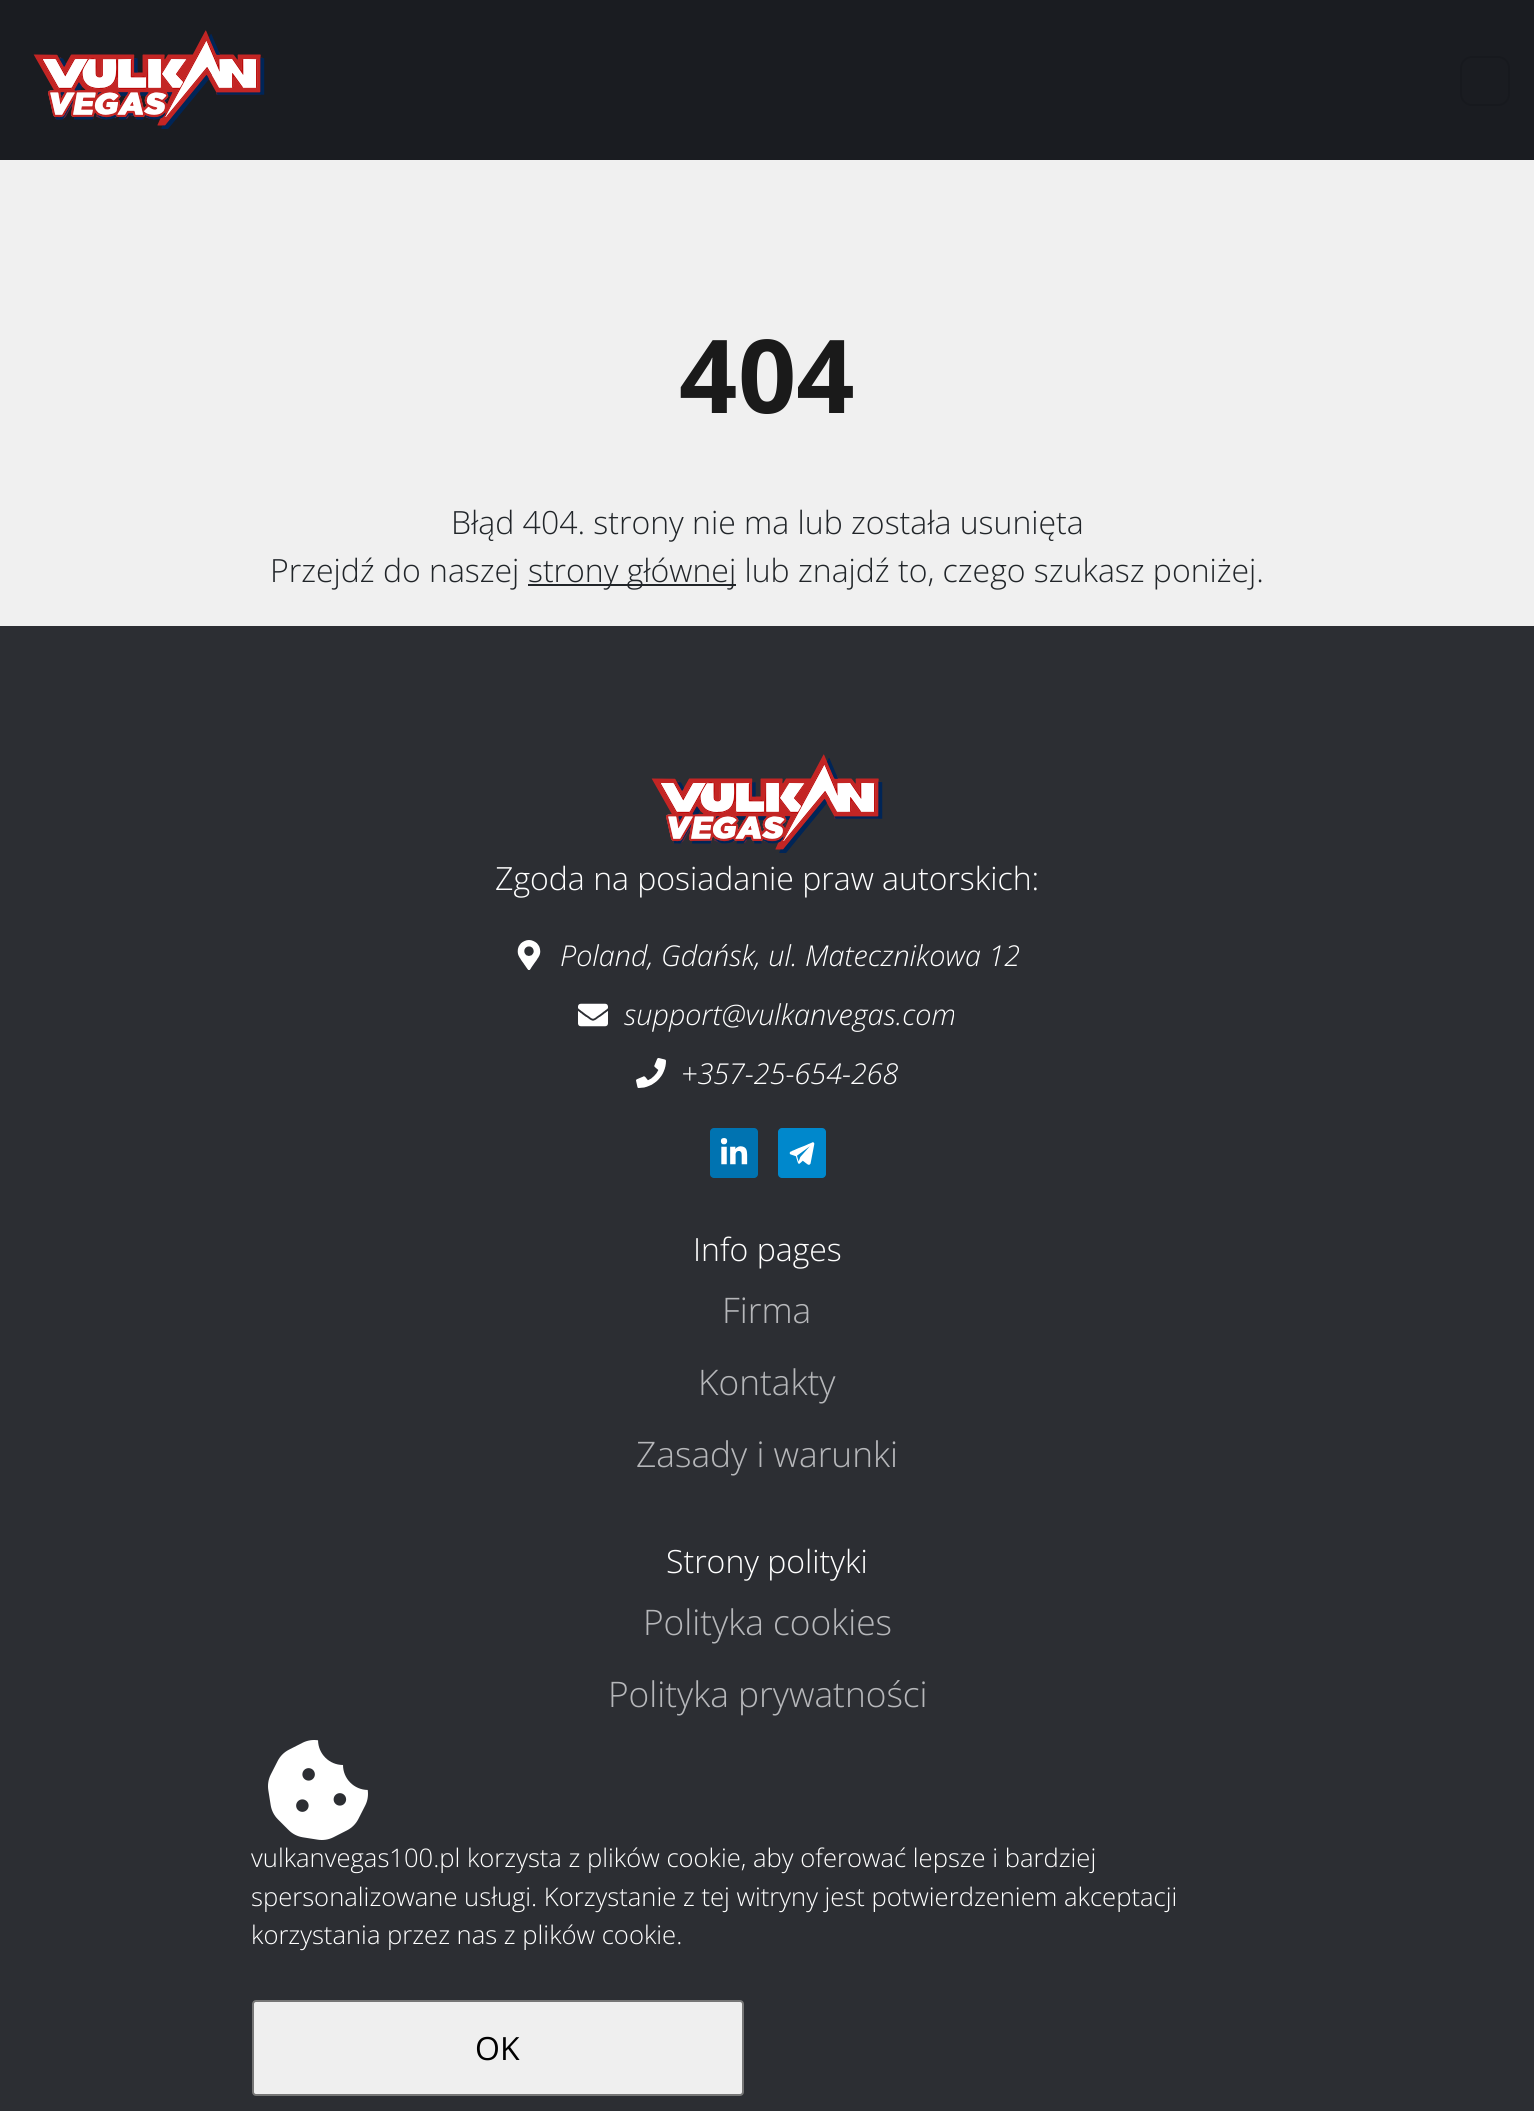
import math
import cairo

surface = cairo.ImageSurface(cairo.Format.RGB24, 1534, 2111)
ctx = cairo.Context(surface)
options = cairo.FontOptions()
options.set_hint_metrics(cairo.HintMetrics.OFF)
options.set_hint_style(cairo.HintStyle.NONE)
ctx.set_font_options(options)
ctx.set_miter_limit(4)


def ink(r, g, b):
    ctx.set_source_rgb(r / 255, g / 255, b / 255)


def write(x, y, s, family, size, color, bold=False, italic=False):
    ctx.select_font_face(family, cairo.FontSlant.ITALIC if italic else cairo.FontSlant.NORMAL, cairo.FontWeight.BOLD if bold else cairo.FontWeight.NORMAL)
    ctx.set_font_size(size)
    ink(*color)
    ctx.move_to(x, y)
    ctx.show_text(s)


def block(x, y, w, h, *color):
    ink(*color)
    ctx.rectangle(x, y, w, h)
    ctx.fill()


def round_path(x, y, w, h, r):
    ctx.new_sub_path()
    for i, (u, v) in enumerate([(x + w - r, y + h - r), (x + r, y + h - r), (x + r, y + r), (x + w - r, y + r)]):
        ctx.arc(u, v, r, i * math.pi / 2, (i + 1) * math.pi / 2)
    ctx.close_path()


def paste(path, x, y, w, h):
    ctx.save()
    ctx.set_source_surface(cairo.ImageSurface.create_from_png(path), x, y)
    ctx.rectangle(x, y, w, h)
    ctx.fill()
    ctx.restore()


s1 = dict(family="Noto Sans", size=102, color=(26, 26, 26), bold=True)
s2 = dict(family="Open Sans", size=102, color=(26, 26, 26), bold=True)
s3 = dict(family="Open Sans Light", size=32, color=(33, 37, 41))
s4 = dict(family="Open Sans Light", size=32, color=(255, 255, 255))
s5 = dict(family="Open Sans Light", size=28.75, color=(255, 255, 255), italic=True)
s6 = dict(family="Open Sans Light", size=35.25, color=(182, 183, 186))
s7 = dict(family="Open Sans Light", size=25.6, color=(255, 255, 255))
s8 = dict(family="Open Sans", size=32, color=(0, 0, 0))

ink(240, 240, 240)
ctx.paint()
block(0, 0, 1534, 160, 26, 28, 33)
paste("pic1.png", 33, 30, 232, 99)
round_path(1461, 57, 48, 48, 11)
ink(23, 25, 30)
ctx.stroke()
write(679, 413, "4", **s1)
write(738, 413, "04", **s2)
write(451, 534, "Błąd 404. strony nie ma lub została usunięta", **s3)
write(270, 582, "Przejdź do naszej", **s3)
block(528, 584, 208, 2, 33, 37, 41)
write(528, 582, "strony głównej lub znajdź to, czego szukasz poniżej.", **s3)
block(0, 626, 1534, 1485, 44, 46, 51)
paste("pic2.png", 651, 754, 232, 99)
write(495, 890, "Zgoda na posiadanie praw autorskich:", **s4)
paste("pic3.png", 517, 940, 24, 30)
write(560, 966, "Poland, Gdańsk, ul. Matecznikowa 12", **s5)
paste("pic4.png", 578, 1003, 30, 24)
write(624, 1025, "support@vulkanvegas.com", **s5)
paste("pic5.png", 636, 1058, 30, 30)
write(681, 1084, "+357-25-654-268", **s5)
ink(0, 115, 177)
round_path(710, 1128, 48, 50, 4)
ctx.fill()
paste("pic6.png", 720, 1138, 28, 27)
ink(0, 136, 204)
round_path(778, 1128, 48, 50, 4)
ctx.fill()
paste("pic7.png", 789, 1142, 26, 23)
write(693, 1261, "Info pages", **s4)
write(722, 1323, "Firma", **s6)
write(698, 1395, "Kontakty", **s6)
write(636, 1467, "Zasady i warunki", **s6)
write(666, 1573, "Strony polityki", **s4)
write(643, 1635, "Polityka cookies", **s6)
write(608, 1707, "Polityka prywatności", **s6)
paste("pic8.png", 268, 1740, 100, 100)
write(251, 1867, "vulkanvegas100.pl korzysta z plików cookie, aby oferować lepsze i bardziej", **s7)
write(251, 1906, "spersonalizowane usługi. Korzystanie z tej witryny jest potwierdzeniem akceptacji", **s7)
write(251, 1944, "korzystania przez nas z plików cookie.", **s7)
ink(239, 239, 239)
round_path(253, 2001, 490, 94, 3)
ctx.fill_preserve()
ink(118, 118, 118)
ctx.stroke()
write(475, 2060, "OK", **s8)
surface.write_to_png("screenshot.png")
